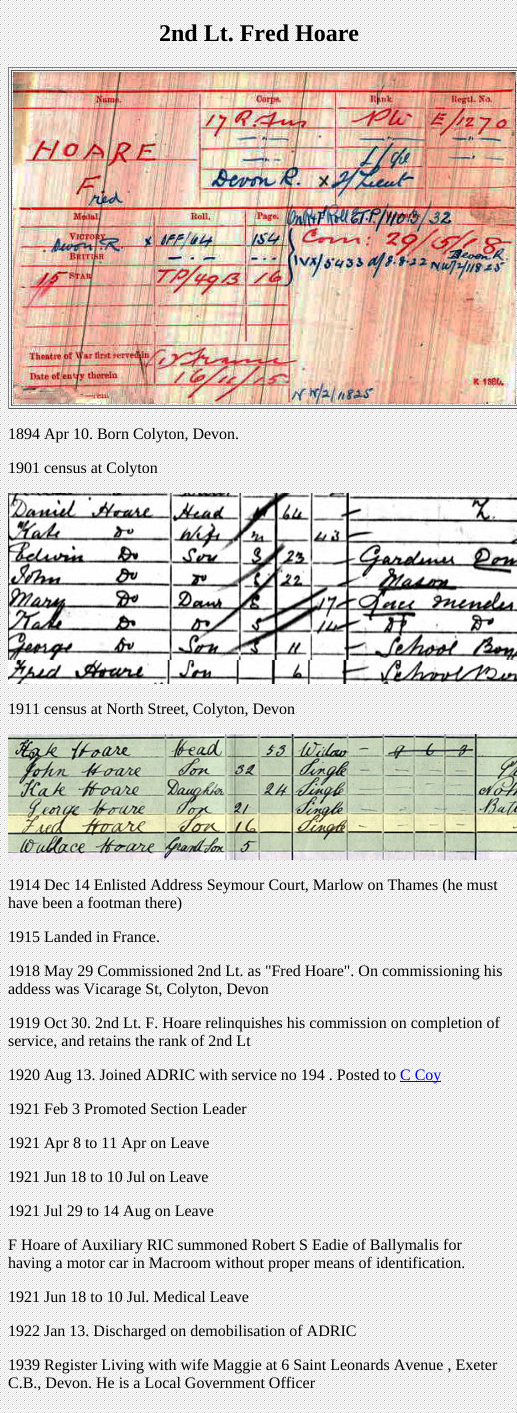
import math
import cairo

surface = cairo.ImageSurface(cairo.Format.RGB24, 517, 1413)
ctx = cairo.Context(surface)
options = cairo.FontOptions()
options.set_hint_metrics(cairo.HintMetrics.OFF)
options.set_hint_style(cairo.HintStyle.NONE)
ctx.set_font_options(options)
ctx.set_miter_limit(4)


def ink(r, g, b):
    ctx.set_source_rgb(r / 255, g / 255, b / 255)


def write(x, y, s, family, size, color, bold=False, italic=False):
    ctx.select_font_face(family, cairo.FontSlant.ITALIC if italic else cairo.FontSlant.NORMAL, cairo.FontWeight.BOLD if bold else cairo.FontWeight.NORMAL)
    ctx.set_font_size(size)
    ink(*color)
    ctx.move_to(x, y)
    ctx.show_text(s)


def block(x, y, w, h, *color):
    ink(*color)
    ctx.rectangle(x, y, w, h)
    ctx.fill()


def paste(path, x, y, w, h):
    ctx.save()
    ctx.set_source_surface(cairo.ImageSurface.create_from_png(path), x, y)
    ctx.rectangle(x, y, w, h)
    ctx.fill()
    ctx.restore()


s1 = dict(family="Liberation Serif", size=24, color=(0, 0, 0), bold=True)
s2 = dict(family="Liberation Serif", size=16, color=(0, 0, 0))
s3 = dict(family="Liberation Serif", size=16, color=(0, 0, 238))

ink(255, 255, 255)
ctx.paint()
paste("pic1.png", 0, 0, 517, 1413)
write(159, 41, "2nd Lt. Fred Hoare", **s1)
block(8, 67, 509, 1, 128, 128, 128)
block(8, 408, 509, 1, 85, 85, 85)
block(8, 67, 1, 342, 128, 128, 128)
block(11, 70, 506, 1, 85, 85, 85)
block(11, 405, 506, 1, 128, 128, 128)
block(11, 70, 1, 336, 85, 85, 85)
paste("pic2.png", 13, 72, 503, 332)
write(8, 439, "1894 Apr 10. Born Colyton, Devon.", **s2)
write(8, 473, "1901 census at Colyton", **s2)
paste("pic3.png", 8, 493, 509, 191)
write(8, 714, "1911 census at North Street, Colyton, Devon", **s2)
paste("pic4.png", 8, 734, 509, 126)
write(8, 890, "1914 Dec 14 Enlisted Address Seymour Court, Marlow on Thames (he must", **s2)
write(8, 908, "have been a footman there)", **s2)
write(8, 942, "1915 Landed in France.", **s2)
write(8, 976, "1918 May 29 Commissioned 2nd Lt. as \"Fred Hoare\". On commissioning his", **s2)
write(8, 994, "addess was Vicarage St, Colyton, Devon", **s2)
write(8, 1028, "1919 Oct 30. 2nd Lt. F. Hoare relinquishes his commission on completion of", **s2)
write(8, 1046, "service, and retains the rank of 2nd Lt", **s2)
write(8, 1080, "1920 Aug 13. Joined ADRIC with service no 194 . Posted to", **s2)
block(400, 1081, 41, 1, 0, 0, 238)
write(400, 1080, "C Coy", **s3)
write(8, 1114, "1921 Feb 3 Promoted Section Leader", **s2)
write(8, 1148, "1921 Apr 8 to 11 Apr on Leave", **s2)
write(8, 1182, "1921 Jun 18 to 10 Jul on Leave", **s2)
write(8, 1216, "1921 Jul 29 to 14 Aug on Leave", **s2)
write(8, 1250, "F Hoare of Auxiliary RIC summoned Robert S Eadie of Ballymalis for", **s2)
write(8, 1268, "having a motor car in Macroom without proper means of identification.", **s2)
write(8, 1302, "1921 Jun 18 to 10 Jul. Medical Leave", **s2)
write(8, 1336, "1922 Jan 13. Discharged on demobilisation of ADRIC", **s2)
write(8, 1370, "1939 Register Living with wife Maggie at 6 Saint Leonards Avenue , Exeter", **s2)
write(8, 1388, "C.B., Devon. He is a Local Government Officer", **s2)
surface.write_to_png("screenshot.png")
